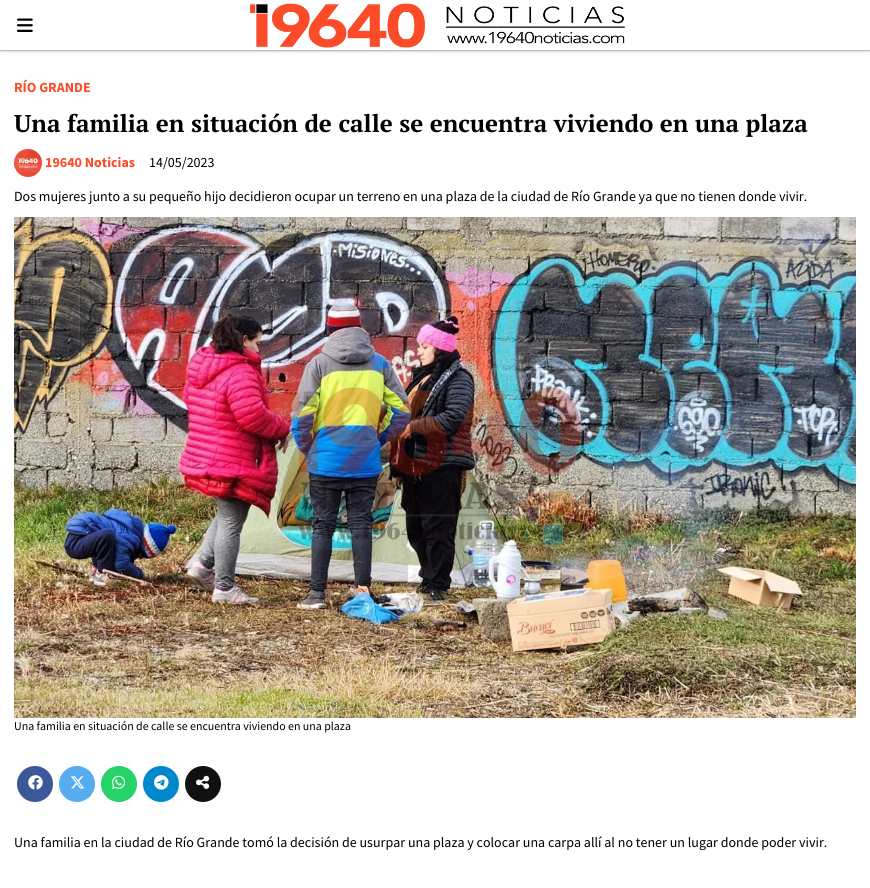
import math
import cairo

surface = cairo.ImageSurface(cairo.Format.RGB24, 870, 888)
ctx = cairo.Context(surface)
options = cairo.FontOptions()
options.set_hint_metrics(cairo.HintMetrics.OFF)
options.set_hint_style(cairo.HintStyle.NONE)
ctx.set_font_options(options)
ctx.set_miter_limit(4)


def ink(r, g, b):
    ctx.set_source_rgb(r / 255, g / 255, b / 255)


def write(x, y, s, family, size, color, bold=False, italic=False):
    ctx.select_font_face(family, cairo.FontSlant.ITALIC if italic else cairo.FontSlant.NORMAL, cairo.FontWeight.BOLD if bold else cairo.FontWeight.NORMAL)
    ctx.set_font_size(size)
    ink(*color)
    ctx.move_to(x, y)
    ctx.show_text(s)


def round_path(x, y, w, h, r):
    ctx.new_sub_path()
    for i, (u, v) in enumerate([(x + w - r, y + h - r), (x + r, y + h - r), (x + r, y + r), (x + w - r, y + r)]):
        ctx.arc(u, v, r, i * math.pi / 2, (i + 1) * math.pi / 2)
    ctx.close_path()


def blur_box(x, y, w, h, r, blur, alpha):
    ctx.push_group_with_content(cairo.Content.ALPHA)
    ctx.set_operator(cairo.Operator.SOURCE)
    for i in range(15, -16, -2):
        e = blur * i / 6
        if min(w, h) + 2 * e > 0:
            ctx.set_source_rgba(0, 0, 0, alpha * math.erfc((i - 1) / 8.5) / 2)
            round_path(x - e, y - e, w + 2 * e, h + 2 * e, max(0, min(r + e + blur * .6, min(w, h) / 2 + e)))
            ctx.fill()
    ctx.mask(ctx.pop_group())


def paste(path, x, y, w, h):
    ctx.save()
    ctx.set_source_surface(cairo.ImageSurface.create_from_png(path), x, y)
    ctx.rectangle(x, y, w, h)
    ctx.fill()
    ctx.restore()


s1 = dict(family="Source Sans Pro", size=14, color=(251, 75, 40), bold=True)
s2 = dict(family="PT Serif", size=24.2, color=(0, 0, 0), bold=True)
s3 = dict(family="Source Sans Pro", size=14, color=(0, 0, 0))
s4 = dict(family="Source Sans Pro", size=11.9, color=(0, 0, 0))

ink(255, 255, 255)
ctx.paint()
ctx.save()
ctx.rectangle(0, 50, 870, 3)
ctx.clip()
ink(85, 85, 85)
blur_box(0, 0, 870, 50, 0, 1.5, 1)
ctx.restore()
paste("pic1.png", 17, 18, 16, 14)
paste("pic2.png", 250, 3, 375, 45)
write(14, 92, "RÍO GRANDE", **s1)
write(14, 132, "Una familia en situación de calle se encuentra viviendo en una plaza", **s2)
paste("pic3.png", 14, 149, 28, 28)
write(45, 167, "19640 Noticias", **s1)
write(149, 167, "14/05/2023", **s3)
write(14, 201, "Dos mujeres junto a su pequeño hijo decidieron ocupar un terreno en una plaza de la ciudad de Río Grande ya que no tienen donde vivir.", **s3)
paste("pic4.png", 14, 217, 842, 501)
write(14, 730, "Una familia en situación de calle se encuentra viviendo en una plaza", **s4)
ink(59, 89, 153)
ctx.new_path()
ctx.arc(35, 784, 18, 0, 2 * math.pi)
ctx.fill()
paste("pic5.png", 28, 775, 15, 15)
ink(85, 172, 238)
ctx.arc(77, 784, 18, 0, 2 * math.pi)
ctx.fill()
paste("pic6.png", 70, 776, 15, 13)
ink(37, 211, 102)
ctx.arc(119, 784, 18, 0, 2 * math.pi)
ctx.fill()
paste("pic7.png", 112, 775, 14, 14)
ink(0, 136, 204)
ctx.arc(161, 784, 18, 0, 2 * math.pi)
ctx.fill()
paste("pic8.png", 154, 775, 15, 15)
ink(17, 17, 17)
ctx.arc(203, 784, 18, 0, 2 * math.pi)
ctx.fill()
paste("pic9.png", 196, 775, 14, 14)
write(14, 847, "Una familia en la ciudad de Río Grande tomó la decisión de usurpar una plaza y colocar una carpa allí al no tener un lugar donde poder vivir.", **s3)
surface.write_to_png("screenshot.png")
